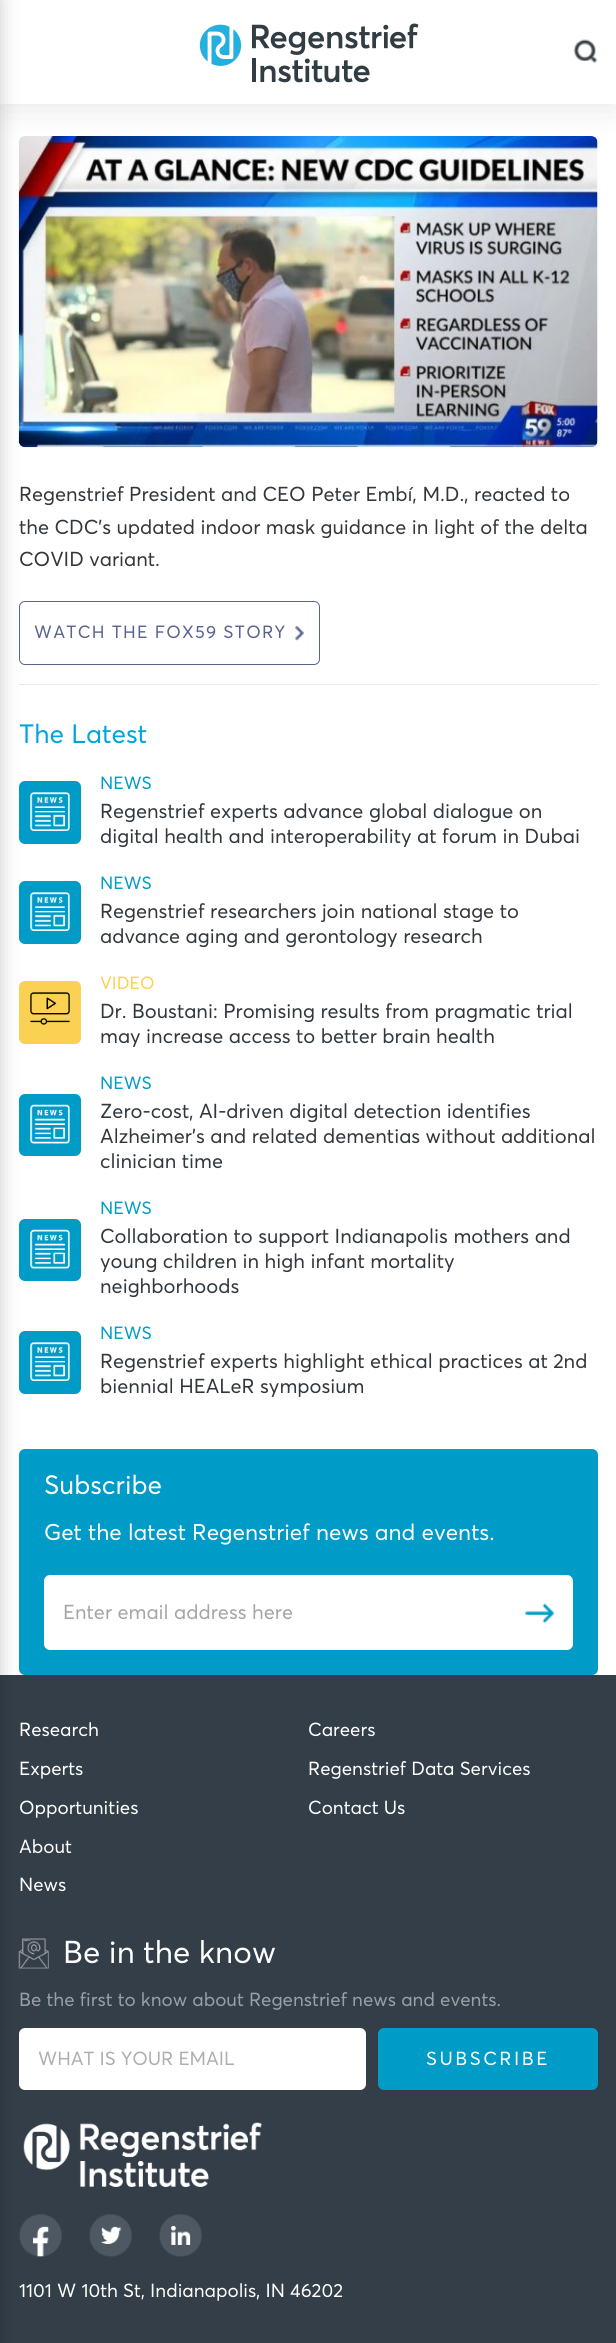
import math
import cairo

surface = cairo.ImageSurface(cairo.Format.RGB24, 616, 2343)
ctx = cairo.Context(surface)
options = cairo.FontOptions()
options.set_hint_metrics(cairo.HintMetrics.OFF)
options.set_hint_style(cairo.HintStyle.NONE)
ctx.set_font_options(options)
ctx.set_miter_limit(4)


def ink(r, g, b):
    ctx.set_source_rgb(r / 255, g / 255, b / 255)


def write(x, y, s, family, size, color, bold=False, italic=False):
    ctx.select_font_face(family, cairo.FontSlant.ITALIC if italic else cairo.FontSlant.NORMAL, cairo.FontWeight.BOLD if bold else cairo.FontWeight.NORMAL)
    ctx.set_font_size(size)
    ink(*color)
    ctx.move_to(x, y)
    ctx.show_text(s)


def write_spaced(x, y, s, letter, word):
    ctx.move_to(x, y)
    for ch in s:
        ctx.show_text(ch)
        ctx.rel_move_to(letter + word * (ch == ' '), 0)


def block(x, y, w, h, *color):
    ink(*color)
    ctx.rectangle(x, y, w, h)
    ctx.fill()


def round_path(x, y, w, h, r):
    ctx.new_sub_path()
    for i, (u, v) in enumerate([(x + w - r, y + h - r), (x + r, y + h - r), (x + r, y + r), (x + w - r, y + r)]):
        ctx.arc(u, v, r, i * math.pi / 2, (i + 1) * math.pi / 2)
    ctx.close_path()


def blur_box(x, y, w, h, r, blur, alpha):
    ctx.push_group_with_content(cairo.Content.ALPHA)
    ctx.set_operator(cairo.Operator.SOURCE)
    for i in range(15, -16, -2):
        e = blur * i / 6
        if min(w, h) + 2 * e > 0:
            ctx.set_source_rgba(0, 0, 0, alpha * math.erfc((i - 1) / 8.5) / 2)
            round_path(x - e, y - e, w + 2 * e, h + 2 * e, max(0, min(r + e + blur * .6, min(w, h) / 2 + e)))
            ctx.fill()
    ctx.mask(ctx.pop_group())


def paste(path, x, y, w, h):
    ctx.save()
    ctx.set_source_surface(cairo.ImageSurface.create_from_png(path), x, y)
    ctx.rectangle(x, y, w, h)
    ctx.fill()
    ctx.restore()


s1 = dict(family="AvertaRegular", size=20, color=(48, 56, 62))
s2 = dict(family="AvertaRegular", size=26.25, color=(0, 165, 220))
s3 = dict(family="AvertaRegular", size=17.5, color=(0, 155, 199))
s4 = dict(family="AvertaRegular", size=17.5, color=(251, 209, 83))
s5 = dict(family="AvertaRegular", size=26.25, color=(255, 255, 255))
s6 = dict(family="AvertaRegular", size=22.5, color=(255, 255, 255))
s7 = dict(family="AvertaRegular", size=20, color=(165, 165, 165))
s8 = dict(family="AvertaRegular", size=18.75, color=(255, 255, 255))
s9 = dict(family="AvertaRegular", size=31.25, color=(255, 255, 255))
s10 = dict(family="AvertaRegular", size=18.75, color=(154, 159, 164))
s11 = dict(family="AvertaRegular", size=18.75, color=(174, 174, 174))

ink(255, 255, 255)
ctx.paint()
paste("pic3.png", 18, 136, 580, 312)
ink(0, 0, 0)
blur_box(0, 0, 616, 104, 0, 19, 0.11)
block(0, 0, 616, 104, 255, 255, 255)
block(19, 684, 579, 1, 233, 233, 233)
round_path(19.5, 601.5, 300, 63, 5.5)
ink(88, 98, 143)
ctx.set_line_width(1)
ctx.stroke()
ink(0, 155, 199)
round_path(19, 781, 62, 63, 6)
ctx.fill()
round_path(19, 881, 62, 63, 6)
ctx.fill()
ink(251, 209, 83)
round_path(19, 981, 62, 63, 6)
ctx.fill()
ink(0, 155, 199)
round_path(19, 1094, 62, 62, 6)
ctx.fill()
round_path(19, 1219, 62, 62, 6)
ctx.fill()
round_path(19, 1331, 62, 63, 6)
ctx.fill()
round_path(19, 1449, 579, 226, 6)
ctx.fill()
block(0, 1675, 616, 668, 52, 62, 72)
paste("pic9.png", 18, 1938, 31, 31)
ink(255, 255, 255)
round_path(19, 2028, 347, 62, 6)
ctx.fill()
paste("pic10.png", 23, 2122, 239, 65)
paste("pic11.png", 19, 2214, 43, 43)
ink(0, 0, 0)
blur_box(-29, 0, 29, 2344, 0, 9.5, 0.21)
paste("pic1.png", 199, 23, 220, 60)
paste("pic2.png", 573, 39, 25, 25)
write(19, 501, "Regenstrief President and CEO Peter Embí, M.D., reacted to", **s1)
write(19, 534, "the CDC’s updated indoor mask guidance in light of the delta", **s1)
write(19, 566, "COVID variant.", **s1)
ctx.set_font_size(17.5)
ink(88, 98, 143)
write_spaced(34, 638, "WATCH THE FOX59 STORY", 1.25, 0)
paste("pic4.png", 295, 625, 10, 16)
write(19, 743, "The Latest", **s2)
paste("pic5.png", 30, 792, 40, 39)
write(100, 789, "NEWS", **s3)
write(100, 818, "Regenstrief experts advance global dialogue on", **s1)
write(100, 843, "digital health and interoperability at forum in Dubai", **s1)
paste("pic5.png", 30, 892, 40, 39)
write(100, 889, "NEWS", **s3)
write(100, 918, "Regenstrief researchers join national stage to", **s1)
write(100, 943, "advance aging and gerontology research", **s1)
paste("pic6.png", 30, 992, 40, 33)
write(100, 989, "VIDEO", **s4)
write(100, 1018, "Dr. Boustani: Promising results from pragmatic trial", **s1)
write(100, 1043, "may increase access to better brain health", **s1)
paste("pic7.png", 30, 1104, 40, 40)
write(100, 1089, "NEWS", **s3)
write(100, 1118, "Zero-cost, AI-driven digital detection identifies", **s1)
write(100, 1143, "Alzheimer’s and related dementias without additional", **s1)
write(100, 1168, "clinician time", **s1)
paste("pic7.png", 30, 1229, 40, 40)
write(100, 1214, "NEWS", **s3)
write(100, 1243, "Collaboration to support Indianapolis mothers and", **s1)
write(100, 1268, "young children in high infant mortality", **s1)
write(100, 1293, "neighborhoods", **s1)
paste("pic5.png", 30, 1342, 40, 39)
write(100, 1339, "NEWS", **s3)
write(100, 1368, "Regenstrief experts highlight ethical practices at 2nd", **s1)
write(100, 1393, "biennial HEALeR symposium", **s1)
write(44, 1494, "Subscribe", **s5)
write(44, 1540, "Get the latest Regenstrief news and events.", **s6)
round_path(44, 1575, 529, 75, 6)
ctx.fill()
write(63, 1619, "Enter email address here", **s7)
paste("pic8.png", 525, 1603, 29, 20)
write(19, 1736, "Research", **s8)
write(19, 1775, "Experts", **s8)
write(19, 1814, "Opportunities", **s8)
write(19, 1853, "About", **s8)
write(19, 1891, "News", **s8)
write(308, 1736, "Careers", **s8)
write(308, 1775, "Regenstrief Data Services", **s8)
write(308, 1814, "Contact Us", **s8)
write(63, 1963, "Be in the know", **s9)
write(19, 2006, "Be the first to know about Regenstrief news and events.", **s10)
write(38, 2065, "WHAT IS YOUR EMAIL", **s11)
ink(0, 156, 200)
round_path(378, 2028, 220, 62, 6)
ctx.fill()
ink(255, 255, 255)
write_spaced(426, 2065, "SUBSCRIBE", 2.5, 0)
paste("pic12.png", 89, 2214, 43, 43)
paste("pic13.png", 159, 2214, 43, 43)
write(19, 2297, "1101 W 10th St, Indianapolis, IN 46202", **s8)
surface.write_to_png("screenshot.png")
